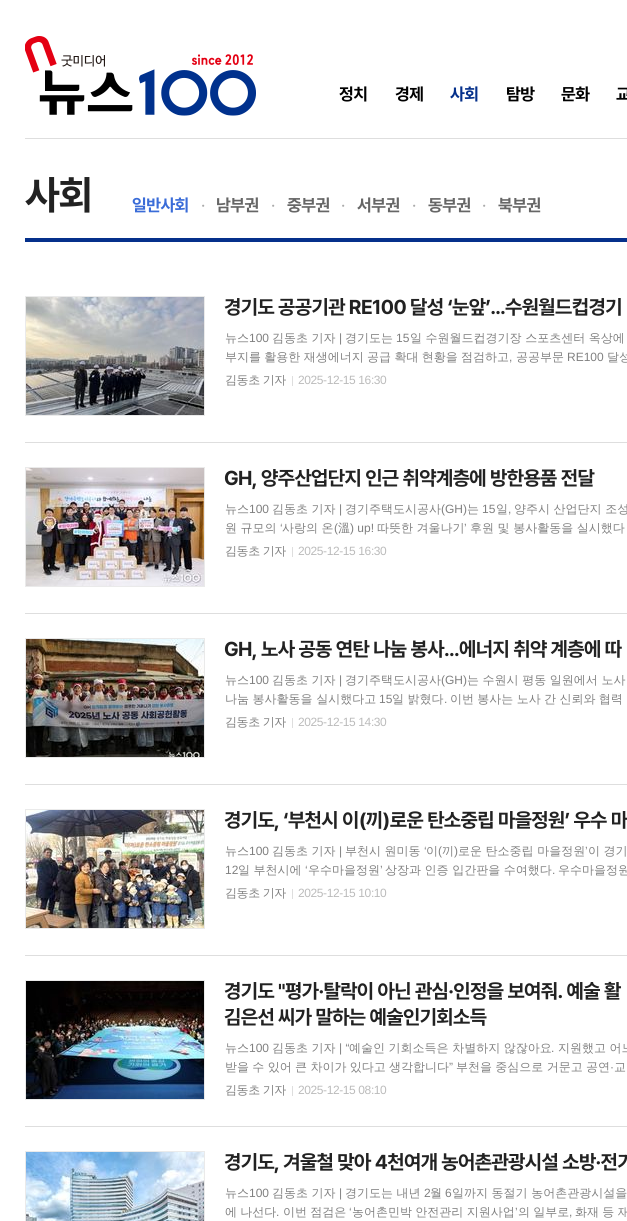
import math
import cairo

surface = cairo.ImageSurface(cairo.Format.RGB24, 627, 1221)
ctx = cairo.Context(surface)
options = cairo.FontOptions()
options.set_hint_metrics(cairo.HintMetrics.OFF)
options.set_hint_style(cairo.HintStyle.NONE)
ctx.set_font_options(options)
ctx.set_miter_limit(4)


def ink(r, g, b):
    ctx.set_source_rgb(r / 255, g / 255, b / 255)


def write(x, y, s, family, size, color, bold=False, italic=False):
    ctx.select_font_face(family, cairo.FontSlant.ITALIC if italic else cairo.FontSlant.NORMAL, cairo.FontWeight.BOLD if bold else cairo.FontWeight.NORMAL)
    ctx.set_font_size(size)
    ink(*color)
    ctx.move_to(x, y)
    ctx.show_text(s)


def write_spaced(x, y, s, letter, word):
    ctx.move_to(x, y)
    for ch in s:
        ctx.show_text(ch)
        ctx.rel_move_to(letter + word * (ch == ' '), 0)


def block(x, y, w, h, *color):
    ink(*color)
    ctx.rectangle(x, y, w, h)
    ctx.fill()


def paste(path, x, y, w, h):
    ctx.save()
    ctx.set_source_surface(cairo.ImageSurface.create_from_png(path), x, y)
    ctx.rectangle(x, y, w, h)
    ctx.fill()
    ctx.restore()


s1 = dict(family="WenQuanYi Zen Hei Medium", size=12, color=(128, 128, 128))
s2 = dict(family="Liberation Sans", size=12, color=(128, 128, 128))

ink(255, 255, 255)
ctx.paint()
block(25, 138, 602, 1, 222, 222, 222)
paste("pic1.png", 25, 36, 231, 80)
ctx.select_font_face("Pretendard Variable", cairo.FontSlant.NORMAL, cairo.FontWeight.BOLD)
ctx.set_font_size(17)
ink(0, 0, 0)
write_spaced(339, 100, "정치", -0.5, 0)
write_spaced(395, 100, "경제", -0.5, 0)
ink(5, 48, 139)
write_spaced(450, 100, "사회", -0.5, 0)
ink(0, 0, 0)
write_spaced(506, 100, "탐방", -0.5, 0)
write_spaced(561, 100, "문화", -0.5, 0)
write_spaced(616, 100, "교", -0.5, 0)
block(25, 238, 602, 4, 5, 48, 139)
ctx.set_font_size(40)
ink(34, 34, 34)
write_spaced(25, 209, "사회", -1, 0)
ctx.set_font_size(17)
ink(58, 108, 216)
write_spaced(132, 211, "일반사회", -0.5, 0)
ctx.select_font_face("Pretendard Variable")
ink(170, 170, 170)
write_spaced(201, 211, "·", -0.5, 0)
ctx.select_font_face("Pretendard Variable", cairo.FontSlant.NORMAL, cairo.FontWeight.BOLD)
ink(102, 102, 102)
write_spaced(216, 211, "남부권", -0.5, 0)
ctx.select_font_face("Pretendard Variable")
ink(170, 170, 170)
write_spaced(271, 211, "·", -0.5, 0)
ctx.select_font_face("Pretendard Variable", cairo.FontSlant.NORMAL, cairo.FontWeight.BOLD)
ink(102, 102, 102)
write_spaced(287, 211, "중부권", -0.5, 0)
ctx.select_font_face("Pretendard Variable")
ink(170, 170, 170)
write_spaced(341, 211, "·", -0.5, 0)
ctx.select_font_face("Pretendard Variable", cairo.FontSlant.NORMAL, cairo.FontWeight.BOLD)
ink(102, 102, 102)
write_spaced(357, 211, "서부권", -0.5, 0)
ctx.select_font_face("Pretendard Variable")
ink(170, 170, 170)
write_spaced(412, 211, "·", -0.5, 0)
ctx.select_font_face("Pretendard Variable", cairo.FontSlant.NORMAL, cairo.FontWeight.BOLD)
ink(102, 102, 102)
write_spaced(428, 211, "동부권", -0.5, 0)
ctx.select_font_face("Pretendard Variable")
ink(170, 170, 170)
write_spaced(482, 211, "·", -0.5, 0)
ctx.select_font_face("Pretendard Variable", cairo.FontSlant.NORMAL, cairo.FontWeight.BOLD)
ink(102, 102, 102)
write_spaced(498, 211, "북부권", -0.5, 0)
block(25, 442, 602, 1, 222, 222, 222)
ctx.rectangle(25.5, 296.5, 179, 119)
ink(234, 234, 234)
ctx.set_line_width(1)
ctx.stroke()
paste("pic2.png", 26, 297, 178, 118)
ctx.set_font_size(20)
ink(34, 34, 34)
write_spaced(224, 314, "경기도 공공기관 RE100 달성 ‘눈앞’…수원월드컵경기", -0.6, 0)
write(225, 342, "뉴스", **s1)
write(249, 342, "100", **s2)
write(272, 342, "김동초 기자", **s1)
write(339, 342, "|", **s2)
write(345, 342, "경기도는", **s1)
write(396, 342, "15", **s2)
write(410, 342, "일 수원월드컵경기장 스포츠센터 옥상에", **s1)
write_spaced(225, 361, "부지를 활용한 재생에너지 공급 확대 현황을 점검하고", 0, -0.25)
write(509, 361, ",", **s2)
write(516, 361, "공공부문", **s1)
write(567, 361, "RE100", **s2)
ctx.select_font_face("WenQuanYi Zen Hei Medium")
write_spaced(607, 361, "달성", 0, -0.25)
write_spaced(225, 384, "김동초 기자", -0.4, -0.25)
block(292, 376, 1, 10, 222, 222, 222)
ctx.select_font_face("Liberation Sans")
ink(187, 187, 187)
write_spaced(298, 384, "2025-12-15 16:30", -0.4, 0)
block(25, 613, 602, 1, 222, 222, 222)
ctx.rectangle(25.5, 467.5, 179, 119)
ink(234, 234, 234)
ctx.stroke()
paste("pic3.png", 26, 468, 178, 118)
ctx.select_font_face("Pretendard Variable", cairo.FontSlant.NORMAL, cairo.FontWeight.BOLD)
ctx.set_font_size(20)
ink(34, 34, 34)
write_spaced(224, 485, "GH, 양주산업단지 인근 취약계층에 방한용품 전달", -0.6, 0)
write(225, 513, "뉴스", **s1)
write(249, 513, "100", **s2)
write(272, 513, "김동초 기자", **s1)
write(339, 513, "|", **s2)
write(345, 513, "경기주택도시공사", **s1)
write(441, 513, "(GH)", **s2)
write(467, 513, "는", **s1)
write(482, 513, "15", **s2)
write(496, 513, "일", **s1)
write(508, 513, ",", **s2)
write(514, 513, "양주시 산업단지 조성", **s1)
write(225, 532, "원 규모의", **s1)
write(280, 532, "‘", **s2)
write(282, 532, "사랑의 온", **s1)
write(334, 532, "(", **s2)
write(338, 532, "溫", **s1)
write(350, 532, ") up!", **s2)
write(377, 532, "따뜻한 겨울나기", **s1)
write(464, 532, "’", **s2)
write(470, 532, "후원 및 봉사활동을 실시했다", **s1)
write_spaced(225, 555, "김동초 기자", -0.4, -0.25)
block(292, 547, 1, 10, 222, 222, 222)
ctx.select_font_face("Liberation Sans")
ink(187, 187, 187)
write_spaced(298, 555, "2025-12-15 16:30", -0.4, 0)
block(25, 784, 602, 1, 222, 222, 222)
ctx.rectangle(25.5, 638.5, 179, 119)
ink(234, 234, 234)
ctx.stroke()
paste("pic4.png", 26, 639, 178, 118)
ctx.select_font_face("Pretendard Variable", cairo.FontSlant.NORMAL, cairo.FontWeight.BOLD)
ctx.set_font_size(20)
ink(34, 34, 34)
write_spaced(224, 656, "GH, 노사 공동 연탄 나눔 봉사...에너지 취약 계층에 따", -0.6, 0)
write(225, 684, "뉴스", **s1)
write(249, 684, "100", **s2)
write(272, 684, "김동초 기자", **s1)
write(339, 684, "|", **s2)
write(345, 684, "경기주택도시공사", **s1)
write(441, 684, "(GH)", **s2)
write(467, 684, "는 수원시 평동 일원에서 노사", **s1)
write(225, 703, "나눔 봉사활동을 실시했다고", **s1)
write(379, 703, "15", **s2)
write(392, 703, "일 밝혔다", **s1)
write(444, 703, ".", **s2)
ctx.select_font_face("WenQuanYi Zen Hei Medium")
write_spaced(450, 703, "이번 봉사는 노사 간 신뢰와 협력", 0, -0.25)
write_spaced(225, 726, "김동초 기자", -0.4, -0.25)
block(292, 718, 1, 10, 222, 222, 222)
ctx.select_font_face("Liberation Sans")
ink(187, 187, 187)
write_spaced(298, 726, "2025-12-15 14:30", -0.4, 0)
block(25, 955, 602, 1, 222, 222, 222)
ctx.rectangle(25.5, 809.5, 179, 119)
ink(234, 234, 234)
ctx.stroke()
paste("pic5.png", 26, 810, 178, 118)
ctx.select_font_face("Pretendard Variable", cairo.FontSlant.NORMAL, cairo.FontWeight.BOLD)
ctx.set_font_size(20)
ink(34, 34, 34)
write_spaced(224, 827, "경기도, ‘부천시 이(끼)로운 탄소중립 마을정원’ 우수 마", -0.6, 0)
write(225, 855, "뉴스", **s1)
write(249, 855, "100", **s2)
write(272, 855, "김동초 기자", **s1)
write(339, 855, "|", **s2)
write(345, 855, "부천시 원미동", **s1)
write(424, 855, "‘", **s2)
write(426, 855, "이", **s1)
write(438, 855, "(", **s2)
write(442, 855, "끼", **s1)
write(454, 855, ")", **s2)
write(458, 855, "로운 탄소중립 마을정원", **s1)
write(585, 855, "’", **s2)
write(588, 855, "이 경기", **s1)
write(225, 874, "12", **s2)
write(238, 874, "일 부천시에", **s1)
write(305, 874, "‘", **s2)
write(308, 874, "우수마을정원", **s1)
write(380, 874, "’", **s2)
write(385, 874, "상장과 인증 입간판을 수여했다", **s1)
write(552, 874, ".", **s2)
write(558, 874, "우수마을정원", **s1)
write_spaced(225, 897, "김동초 기자", -0.4, -0.25)
block(292, 889, 1, 10, 222, 222, 222)
ctx.select_font_face("Liberation Sans")
ink(187, 187, 187)
write_spaced(298, 897, "2025-12-15 10:10", -0.4, 0)
block(25, 1126, 602, 1, 222, 222, 222)
ctx.rectangle(25.5, 980.5, 179, 119)
ink(234, 234, 234)
ctx.stroke()
paste("pic6.png", 26, 981, 178, 118)
ctx.select_font_face("Pretendard Variable", cairo.FontSlant.NORMAL, cairo.FontWeight.BOLD)
ctx.set_font_size(20)
ink(34, 34, 34)
write_spaced(224, 998, "경기도 \"평가·탈락이 아닌 관심·인정을 보여줘. 예술 활", -0.6, 0)
write_spaced(224, 1024, "김은선 씨가 말하는 예술인기회소득", -0.6, 0)
write(225, 1052, "뉴스", **s1)
write(249, 1052, "100", **s2)
write(272, 1052, "김동초 기자", **s1)
write(339, 1052, "| “", **s2)
write(349, 1052, "예술인 기회소득은 차별하지 않잖아요", **s1)
write(551, 1052, ".", **s2)
write(558, 1052, "지원했고 어느", **s1)
write_spaced(225, 1071, "받을 수 있어 큰 차이가 있다고 생각합니다", 0, -0.25)
write(449, 1071, "”", **s2)
ctx.select_font_face("WenQuanYi Zen Hei Medium")
write_spaced(456, 1071, "부천을 중심으로 거문고 공연", 0, -0.25)
write(610, 1071, "·", **s2)
ctx.select_font_face("WenQuanYi Zen Hei Medium")
write_spaced(614, 1071, "교", 0, -0.25)
write_spaced(225, 1094, "김동초 기자", -0.4, -0.25)
block(292, 1086, 1, 10, 222, 222, 222)
ctx.select_font_face("Liberation Sans")
ink(187, 187, 187)
write_spaced(298, 1094, "2025-12-15 08:10", -0.4, 0)
ctx.rectangle(25.5, 1151.5, 179, 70)
ink(234, 234, 234)
ctx.stroke()
paste("pic7.png", 26, 1152, 178, 69)
ctx.select_font_face("Pretendard Variable", cairo.FontSlant.NORMAL, cairo.FontWeight.BOLD)
ctx.set_font_size(20)
ink(34, 34, 34)
write_spaced(224, 1169, "경기도, 겨울철 맞아 4천여개 농어촌관광시설 소방·전기", -0.6, 0)
write(225, 1197, "뉴스", **s1)
write(249, 1197, "100", **s2)
write(272, 1197, "김동초 기자", **s1)
write(339, 1197, "|", **s2)
write(345, 1197, "경기도는 내년", **s1)
write(424, 1197, "2", **s2)
write(430, 1197, "월", **s1)
write(445, 1197, "6", **s2)
write(452, 1197, "일까지 동절기 농어촌관광시설을", **s1)
write_spaced(225, 1216, "에 나선다", 0, -0.25)
write(276, 1216, ".", **s2)
ctx.select_font_face("WenQuanYi Zen Hei Medium")
write_spaced(283, 1216, "이번 점검은", 0, -0.25)
write(349, 1216, "‘", **s2)
ctx.select_font_face("WenQuanYi Zen Hei Medium")
write_spaced(352, 1216, "농어촌민박 안전관리 지원사업", 0, -0.25)
write(515, 1216, "’", **s2)
ctx.select_font_face("WenQuanYi Zen Hei Medium")
write_spaced(518, 1216, "의 일부로", 0, -0.25)
write(569, 1216, ",", **s2)
ctx.select_font_face("WenQuanYi Zen Hei Medium")
write_spaced(575, 1216, "화재 등 재", 0, -0.25)
surface.write_to_png("screenshot.png")
